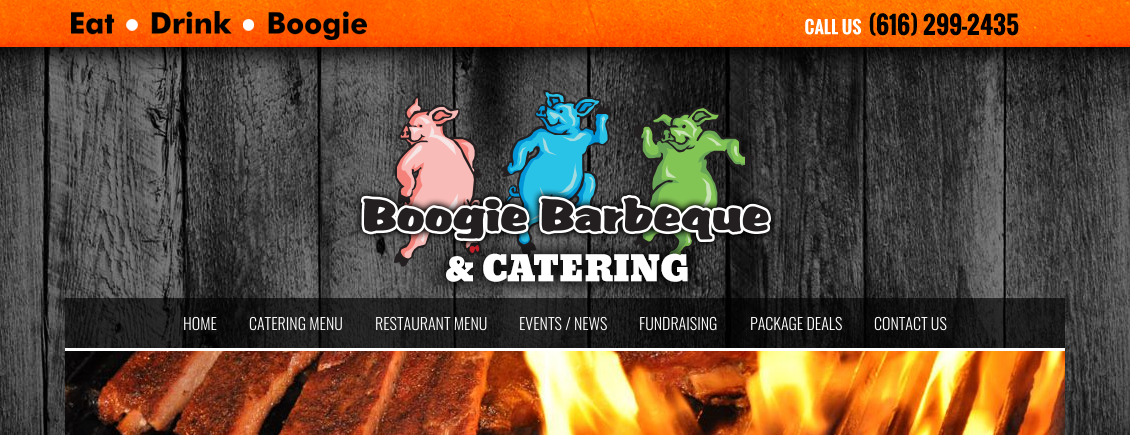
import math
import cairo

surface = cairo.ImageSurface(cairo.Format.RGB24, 1130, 435)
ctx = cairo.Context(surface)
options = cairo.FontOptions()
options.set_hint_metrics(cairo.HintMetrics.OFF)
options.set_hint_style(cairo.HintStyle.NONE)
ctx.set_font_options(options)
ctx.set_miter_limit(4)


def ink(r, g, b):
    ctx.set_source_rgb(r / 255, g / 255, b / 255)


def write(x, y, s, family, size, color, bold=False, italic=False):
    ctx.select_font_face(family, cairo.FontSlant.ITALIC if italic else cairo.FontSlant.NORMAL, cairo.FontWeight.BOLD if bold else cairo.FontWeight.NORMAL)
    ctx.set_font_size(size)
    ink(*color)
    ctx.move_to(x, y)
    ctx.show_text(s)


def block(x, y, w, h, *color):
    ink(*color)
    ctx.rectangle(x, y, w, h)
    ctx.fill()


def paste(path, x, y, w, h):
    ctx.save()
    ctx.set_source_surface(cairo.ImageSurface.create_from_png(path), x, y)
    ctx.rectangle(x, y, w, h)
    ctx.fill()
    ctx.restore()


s1 = dict(family="Oswald Light", size=16, color=(255, 255, 255))

ink(255, 255, 255)
ctx.paint()
paste("pic1.png", 0, 47, 1130, 388)
paste("pic2.png", 0, 0, 1130, 75)
paste("pic3.png", 71, 11, 296, 29)
paste("pic4.png", 805, 12, 214, 24)
paste("pic5.png", 355, 90, 422, 205)
ctx.set_source_rgba(0, 0, 0, 0.4)
ctx.rectangle(65, 298, 1000, 50)
ctx.fill()
ctx.rectangle(65, 298, 1000, 50)
ctx.fill()
block(65, 348, 1000, 3, 255, 255, 255)
write(183, 330, "HOME", **s1)
write(249, 330, "CATERING MENU", **s1)
write(375, 330, "RESTAURANT MENU", **s1)
write(519, 330, "EVENTS / NEWS", **s1)
write(639, 330, "FUNDRAISING", **s1)
write(750, 330, "PACKAGE DEALS", **s1)
write(874, 330, "CONTACT US", **s1)
paste("pic6.png", 65, 351, 1000, 84)
surface.write_to_png("screenshot.png")
